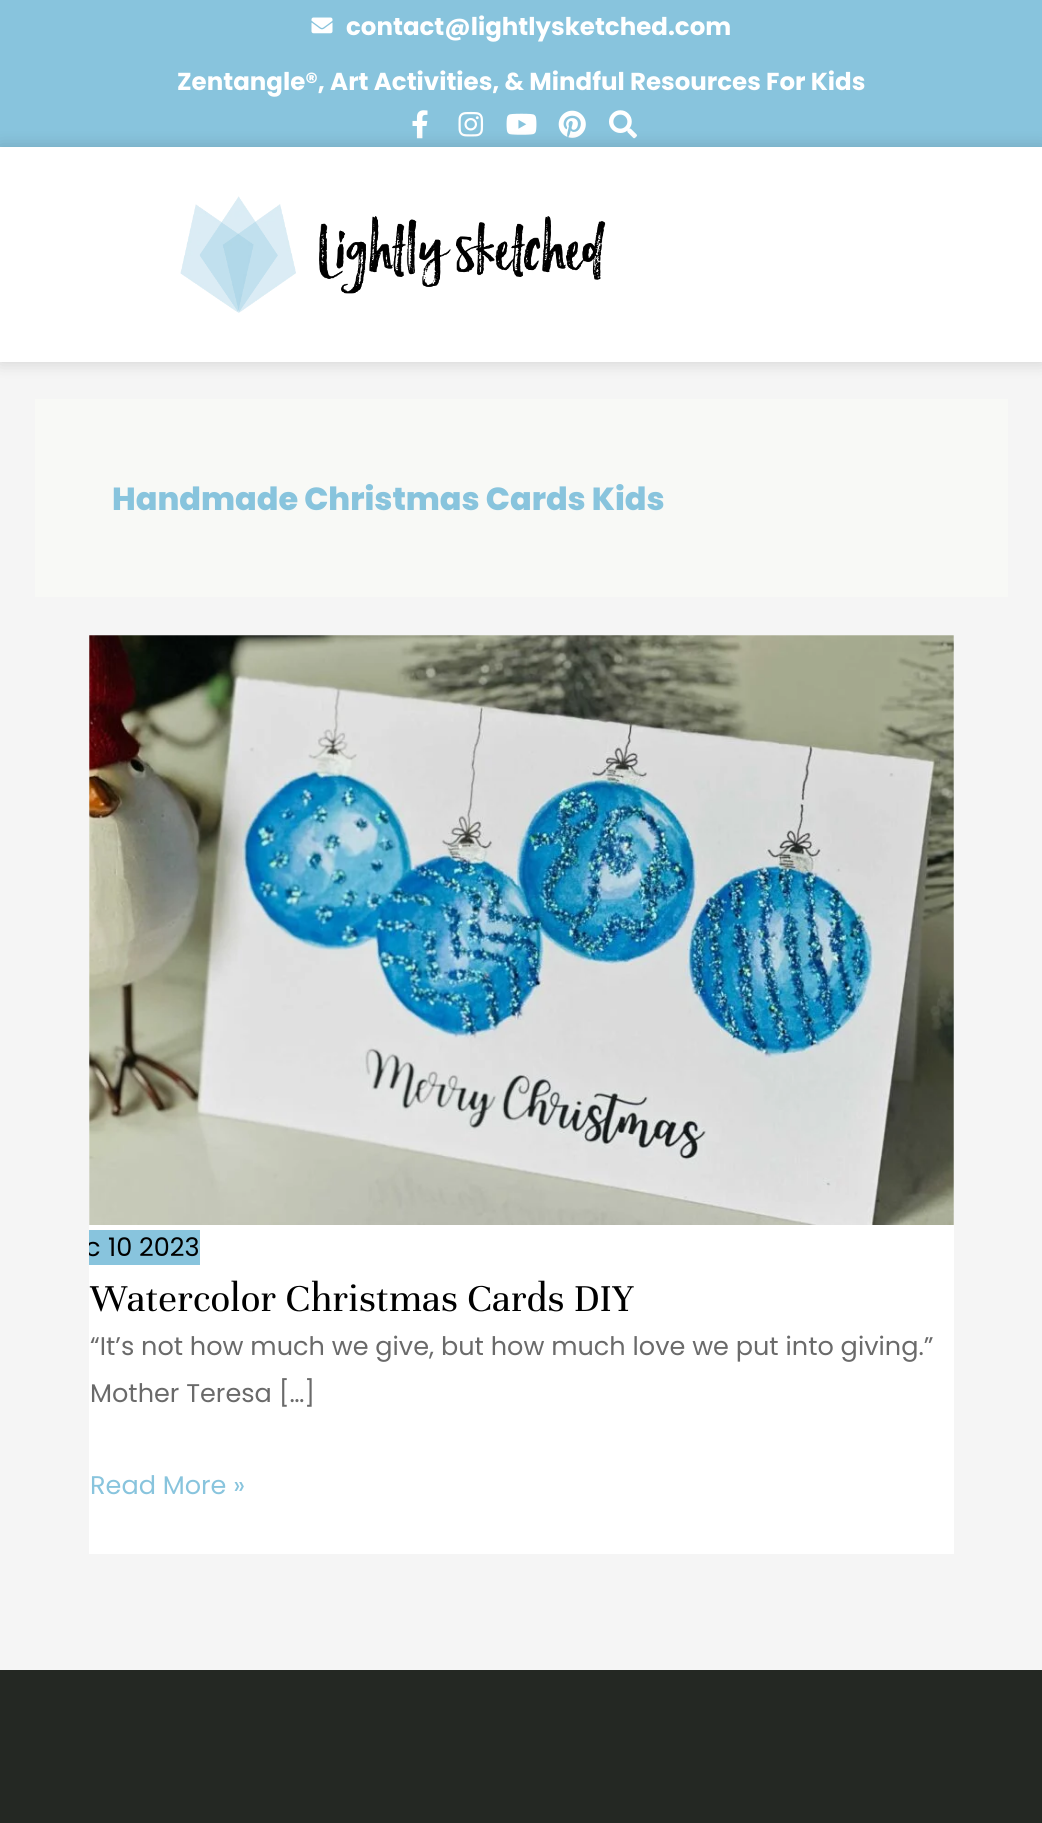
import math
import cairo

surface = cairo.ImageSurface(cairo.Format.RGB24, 1042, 1823)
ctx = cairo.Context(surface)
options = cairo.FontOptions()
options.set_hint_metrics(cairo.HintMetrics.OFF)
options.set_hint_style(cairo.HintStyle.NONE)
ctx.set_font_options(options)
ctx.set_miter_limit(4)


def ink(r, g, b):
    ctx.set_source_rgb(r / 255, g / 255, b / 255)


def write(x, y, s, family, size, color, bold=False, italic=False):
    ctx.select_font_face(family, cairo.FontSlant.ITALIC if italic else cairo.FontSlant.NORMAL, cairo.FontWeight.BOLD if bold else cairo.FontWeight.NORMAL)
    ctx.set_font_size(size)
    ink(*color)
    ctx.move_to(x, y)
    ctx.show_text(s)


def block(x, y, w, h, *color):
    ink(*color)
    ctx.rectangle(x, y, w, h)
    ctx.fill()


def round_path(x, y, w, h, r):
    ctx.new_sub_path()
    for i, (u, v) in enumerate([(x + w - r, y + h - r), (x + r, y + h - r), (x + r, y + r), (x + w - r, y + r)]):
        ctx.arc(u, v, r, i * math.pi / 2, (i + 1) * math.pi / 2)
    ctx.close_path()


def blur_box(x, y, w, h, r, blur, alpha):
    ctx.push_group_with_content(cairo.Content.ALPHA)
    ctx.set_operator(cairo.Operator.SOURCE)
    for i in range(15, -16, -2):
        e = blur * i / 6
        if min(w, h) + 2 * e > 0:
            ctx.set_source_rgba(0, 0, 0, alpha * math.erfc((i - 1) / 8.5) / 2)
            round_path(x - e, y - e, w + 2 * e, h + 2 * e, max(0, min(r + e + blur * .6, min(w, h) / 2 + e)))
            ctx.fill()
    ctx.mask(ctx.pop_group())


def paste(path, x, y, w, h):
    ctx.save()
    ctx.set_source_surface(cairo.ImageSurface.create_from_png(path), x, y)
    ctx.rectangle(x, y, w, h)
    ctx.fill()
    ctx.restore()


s1 = dict(family="Poppins", size=24.5, color=(255, 255, 255), bold=True)
s2 = dict(family="Poppins ExtraBold", size=31.9, color=(136, 196, 221))
s3 = dict(family="Poppins", size=25.55, color=(0, 0, 0))
s4 = dict(family="Unna", size=41.5, color=(0, 0, 0))
s5 = dict(family="Poppins", size=25.55, color=(106, 106, 106))
s6 = dict(family="Poppins", size=25.55, color=(136, 196, 221))

ink(245, 245, 245)
ctx.paint()
block(0, 0, 1042, 147, 136, 196, 221)
paste("pic1.png", 311, 17, 22, 17)
write(346, 35, "contact@lightlysketched.com", **s1)
write(177, 90, "Zentangle®, Art Activities, & Mindful Resources For Kids", **s1)
paste("pic2.png", 412, 110, 16, 29)
paste("pic3.png", 458, 111, 26, 26)
paste("pic4.png", 506, 113, 31, 22)
paste("pic5.png", 558, 110, 28, 28)
paste("pic6.png", 609, 110, 28, 29)
ink(0, 0, 0)
blur_box(0, 147, 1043, 215, 0, 9, 0.16)
block(0, 147, 1042, 215, 255, 255, 255)
paste("pic7.png", 180, 196, 426, 117)
block(35, 399, 973, 198, 248, 249, 246)
write(112, 510, "Handmade Christmas Cards Kids", **s2)
block(89, 635, 865, 919, 255, 255, 255)
paste("pic8.png", 89, 635, 865, 590)
block(89, 1230, 111, 35, 136, 196, 221)
ctx.save()
ctx.rectangle(89, 635, 865, 919)
ctx.clip()
write(85, 1256, "c", **s3)
ctx.restore()
write(108, 1256, "10 2023", **s3)
write(90, 1311, "Watercolor Christmas Cards DIY", **s4)
write(90, 1355, "“It’s not how much we give, but how much love we put into giving.”", **s5)
write(90, 1402, "Mother Teresa […]", **s5)
write(90, 1494, "Read More »", **s6)
block(0, 1670, 1042, 153, 36, 40, 35)
surface.write_to_png("screenshot.png")
